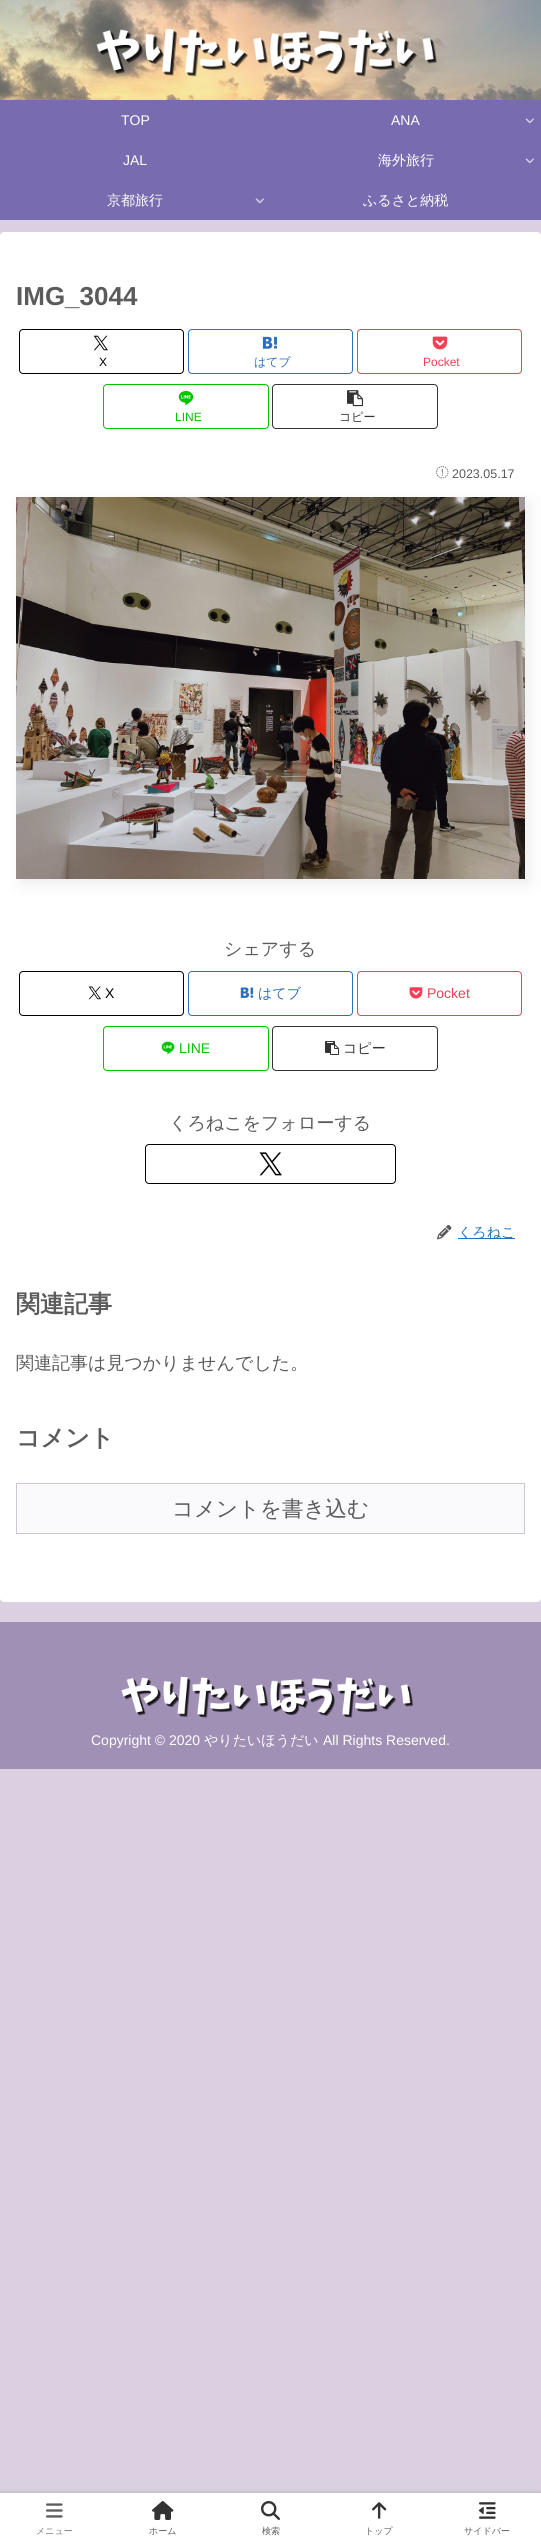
import math
import cairo

surface = cairo.ImageSurface(cairo.Format.RGB24, 541, 2543)
ctx = cairo.Context(surface)
options = cairo.FontOptions()
options.set_hint_metrics(cairo.HintMetrics.OFF)
options.set_hint_style(cairo.HintStyle.NONE)
ctx.set_font_options(options)
ctx.set_miter_limit(4)


def ink(r, g, b):
    ctx.set_source_rgb(r / 255, g / 255, b / 255)


def write(x, y, s, family, size, color, bold=False, italic=False):
    ctx.select_font_face(family, cairo.FontSlant.ITALIC if italic else cairo.FontSlant.NORMAL, cairo.FontWeight.BOLD if bold else cairo.FontWeight.NORMAL)
    ctx.set_font_size(size)
    ink(*color)
    ctx.move_to(x, y)
    ctx.show_text(s)


def block(x, y, w, h, *color):
    ink(*color)
    ctx.rectangle(x, y, w, h)
    ctx.fill()


def round_path(x, y, w, h, r):
    ctx.new_sub_path()
    for i, (u, v) in enumerate([(x + w - r, y + h - r), (x + r, y + h - r), (x + r, y + r), (x + w - r, y + r)]):
        ctx.arc(u, v, r, i * math.pi / 2, (i + 1) * math.pi / 2)
    ctx.close_path()


def blur_box(x, y, w, h, r, blur, alpha):
    ctx.push_group_with_content(cairo.Content.ALPHA)
    ctx.set_operator(cairo.Operator.SOURCE)
    for i in range(15, -16, -2):
        e = blur * i / 6
        if min(w, h) + 2 * e > 0:
            ctx.set_source_rgba(0, 0, 0, alpha * math.erfc((i - 1) / 8.5) / 2)
            round_path(x - e, y - e, w + 2 * e, h + 2 * e, max(0, min(r + e + blur * .6, min(w, h) / 2 + e)))
            ctx.fill()
    ctx.mask(ctx.pop_group())


def paste(path, x, y, w, h):
    ctx.save()
    ctx.set_source_surface(cairo.ImageSurface.create_from_png(path), x, y)
    ctx.rectangle(x, y, w, h)
    ctx.fill()
    ctx.restore()


s1 = dict(family="Liberation Sans", size=14, color=(255, 255, 255))
s2 = dict(family="WenQuanYi Zen Hei Medium", size=14, color=(255, 255, 255))
s3 = dict(family="Liberation Sans", size=26, color=(91, 91, 91), bold=True)
s4 = dict(family="Liberation Sans", size=12, color=(0, 0, 0))
s5 = dict(family="WenQuanYi Zen Hei Medium", size=12, color=(44, 110, 189))
s6 = dict(family="Liberation Sans", size=12, color=(239, 64, 86))
s7 = dict(family="Liberation Sans", size=12, color=(0, 195, 0))
s8 = dict(family="WenQuanYi Zen Hei Medium", size=12, color=(51, 51, 51))
s9 = dict(family="Liberation Sans", size=12.5, color=(91, 91, 91))
s10 = dict(family="WenQuanYi Zen Hei Medium", size=18, color=(91, 91, 91))
s11 = dict(family="Liberation Sans", size=14, color=(0, 0, 0))
s12 = dict(family="WenQuanYi Zen Hei Medium", size=14, color=(44, 110, 189))
s13 = dict(family="Liberation Sans", size=14, color=(239, 64, 86))
s14 = dict(family="Liberation Sans", size=14, color=(0, 195, 0))
s15 = dict(family="WenQuanYi Zen Hei Medium", size=14, color=(51, 51, 51))
s16 = dict(family="WenQuanYi Zen Hei Medium", size=14, color=(30, 115, 190))
s17 = dict(family="WenQuanYi Zen Hei", size=24, color=(91, 91, 91), bold=True)
s18 = dict(family="WenQuanYi Zen Hei Medium", size=21.5, color=(91, 91, 91))
s19 = dict(family="WenQuanYi Zen Hei Medium", size=9, color=(124, 124, 124))
s20 = dict(family="WenQuanYi Zen Hei Medium", size=9, color=(91, 91, 91))

ink(218, 208, 226)
ctx.paint()
paste("pic1.png", 0, 0, 541, 100)
paste("pic2.png", 96, 28, 341, 49)
block(0, 100, 541, 120, 121, 107, 175)
write(121, 125, "TOP", **s1)
write(391, 125, "ANA", **s1)
paste("pic3.png", 525, 118, 9, 6)
write(123, 165, "JAL", **s1)
write(378, 165, "海外旅行", **s2)
paste("pic3.png", 525, 158, 9, 6)
write(107, 205, "京都旅行", **s2)
paste("pic3.png", 255, 198, 9, 6)
write(363, 205, "ふるさと納税", **s2)
round_path(0, 232, 541, 1370, 4)
ctx.fill()
write(16, 305, "IMG_3044", **s3)
round_path(19.5, 329.5, 164, 44, 3.5)
ink(0, 0, 0)
ctx.set_line_width(1)
ctx.stroke()
paste("pic4.png", 93, 335, 15, 16)
write(99, 366, "X", **s4)
round_path(188.5, 329.5, 164, 44, 3.5)
ink(44, 110, 189)
ctx.stroke()
paste("pic5.png", 262, 336, 16, 13)
write(254, 366, "はてブ", **s5)
round_path(357.5, 329.5, 164, 44, 3.5)
ink(239, 64, 86)
ctx.stroke()
paste("pic6.png", 432, 336, 16, 14)
write(423, 366, "Pocket", **s6)
round_path(103.5, 384.5, 165, 44, 3.5)
ink(0, 195, 0)
ctx.stroke()
paste("pic7.png", 178, 391, 16, 14)
write(175, 421, "LINE", **s7)
round_path(272.5, 384.5, 165, 44, 3.5)
ink(51, 51, 51)
ctx.stroke()
paste("pic8.png", 347, 390, 16, 17)
write(339, 421, "コピー", **s8)
ink(238, 238, 238)
blur_box(21, 502, 509, 382, 0, 7.5, 1)
paste("pic9.png", 436, 466, 13, 13)
write(452, 478, "2023.05.17", **s9)
paste("pic10.png", 16, 497, 509, 382)
write(224, 955, "シェアする", **s10)
round_path(19.5, 971.5, 164, 44, 3.5)
ink(0, 0, 0)
ctx.stroke()
paste("pic11.png", 88, 986, 13, 14)
write(105, 998, "X", **s11)
round_path(188.5, 971.5, 164, 44, 3.5)
ink(44, 110, 189)
ctx.stroke()
paste("pic12.png", 240, 987, 14, 11)
write(258, 998, "はてブ", **s12)
round_path(357.5, 971.5, 164, 44, 3.5)
ink(239, 64, 86)
ctx.stroke()
paste("pic13.png", 409, 987, 14, 12)
write(427, 998, "Pocket", **s13)
round_path(103.5, 1026.5, 165, 44, 3.5)
ink(0, 195, 0)
ctx.stroke()
paste("pic14.png", 161, 1041, 14, 13)
write(179, 1053, "LINE", **s14)
round_path(272.5, 1026.5, 165, 44, 3.5)
ink(51, 51, 51)
ctx.stroke()
paste("pic15.png", 325, 1041, 14, 14)
write(343, 1053, "コピー", **s15)
write(169, 1129, "くろねこをフォローする", **s10)
round_path(145.5, 1144.5, 250, 39, 3.5)
ink(0, 0, 0)
ctx.stroke()
paste("pic16.png", 259, 1152, 23, 24)
paste("pic17.png", 437, 1225, 15, 15)
block(458, 1238, 57, 1, 30, 115, 190)
write(458, 1237, "くろねこ", **s16)
write(16, 1312, "関連記事", **s17)
write(16, 1369, "関連記事は見つかりませんでした。", **s10)
write(16, 1446, "コメント", **s17)
ink(250, 249, 251)
ctx.rectangle(16.5, 1483.5, 508, 50)
ctx.fill_preserve()
ink(206, 197, 216)
ctx.stroke()
write(172, 1516, "コメントを書き込む", **s18)
block(0, 1622, 541, 147, 161, 144, 181)
paste("pic18.png", 121, 1676, 292, 42)
write(91, 1745, "Copyright © 2020", **s1)
write(204, 1745, "やりたいほうだい", **s2)
write(323, 1745, "All Rights Reserved.", **s1)
ink(169, 169, 169)
blur_box(0, 2493, 541, 50, 0, 2.5, 1)
block(0, 2493, 541, 50, 255, 255, 255)
paste("pic19.png", 46, 2503, 17, 15)
write(36, 2534, "メニュー", **s19)
paste("pic20.png", 152, 2501, 22, 19)
write(149, 2534, "ホーム", **s20)
paste("pic21.png", 261, 2501, 19, 19)
write(262, 2534, "検索", **s20)
paste("pic22.png", 372, 2502, 15, 17)
write(365, 2534, "トップ", **s20)
paste("pic23.png", 478, 2502, 18, 17)
write(464, 2534, "サイドバー", **s20)
surface.write_to_png("screenshot.png")
